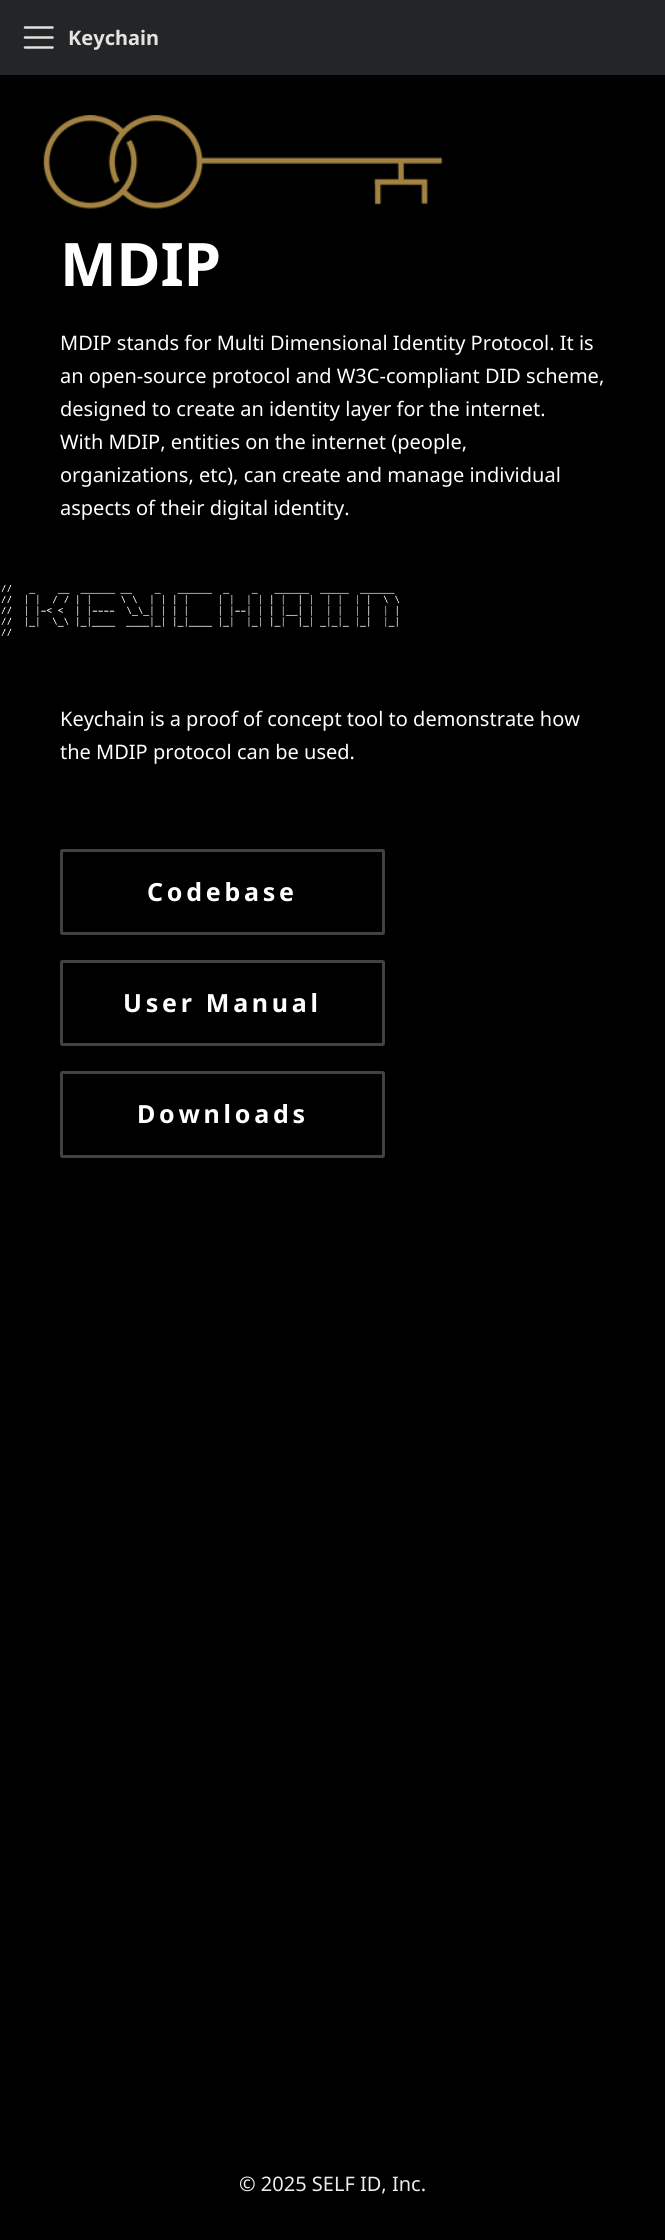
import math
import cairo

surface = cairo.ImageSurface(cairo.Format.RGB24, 665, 2240)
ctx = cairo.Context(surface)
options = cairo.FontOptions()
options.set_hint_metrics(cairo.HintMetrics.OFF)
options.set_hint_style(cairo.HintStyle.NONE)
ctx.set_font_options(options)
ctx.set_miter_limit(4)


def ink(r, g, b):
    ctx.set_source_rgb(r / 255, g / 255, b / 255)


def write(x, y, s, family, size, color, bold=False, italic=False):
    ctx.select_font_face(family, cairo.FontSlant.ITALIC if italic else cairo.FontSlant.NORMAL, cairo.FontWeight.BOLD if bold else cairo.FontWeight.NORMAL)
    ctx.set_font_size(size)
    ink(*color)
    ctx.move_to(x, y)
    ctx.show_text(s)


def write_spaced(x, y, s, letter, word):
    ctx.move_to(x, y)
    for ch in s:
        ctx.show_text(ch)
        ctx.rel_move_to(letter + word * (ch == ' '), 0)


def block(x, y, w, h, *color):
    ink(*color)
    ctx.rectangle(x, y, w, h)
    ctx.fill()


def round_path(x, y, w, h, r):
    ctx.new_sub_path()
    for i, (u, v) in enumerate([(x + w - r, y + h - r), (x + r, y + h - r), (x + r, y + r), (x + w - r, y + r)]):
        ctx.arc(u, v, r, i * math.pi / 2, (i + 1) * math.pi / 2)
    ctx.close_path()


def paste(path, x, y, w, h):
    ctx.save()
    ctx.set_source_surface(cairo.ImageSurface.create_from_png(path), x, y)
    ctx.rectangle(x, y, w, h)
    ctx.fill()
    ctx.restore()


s1 = dict(family="Noto Sans", size=20, color=(227, 227, 227), bold=True)
s2 = dict(family="Noto Sans", size=60, color=(255, 255, 255), bold=True)
s3 = dict(family="Noto Sans", size=20, color=(255, 255, 255))
s4 = dict(family="Noto Sans", size=20, color=(235, 237, 240))

ink(0, 0, 0)
ctx.paint()
block(0, 0, 665, 75, 36, 37, 38)
ctx.new_path()
ctx.move_to(25, 27.5)
ctx.line_to(52.5, 27.5)
ctx.move_to(25, 37.5)
ctx.line_to(52.5, 37.5)
ctx.move_to(25, 47.5)
ctx.line_to(52.5, 47.5)
ink(227, 227, 227)
ctx.set_line_width(2.5)
ctx.set_line_cap(cairo.LineCap.ROUND)
ctx.stroke()
write(68, 45, "Keychain", **s1)
paste("pic1.png", 43, 115, 400, 94)
write(60, 286, "MDIP", **s2)
write(60, 350, "MDIP stands for Multi Dimensional Identity Protocol. It is", **s3)
write(60, 383, "an open-source protocol and W3C-compliant DID scheme,", **s3)
write(60, 416, "designed to create an identity layer for the internet.", **s3)
write(60, 449, "With MDIP, entities on the internet (people,", **s3)
write(60, 482, "organizations, etc), can create and manage individual", **s3)
write(60, 515, "aspects of their digital identity.", **s3)
paste("pic2.png", 1, 584, 399, 52)
write(60, 726, "Keychain is a proof of concept tool to demonstrate how", **s3)
write(60, 759, "the MDIP protocol can be used.", **s3)
round_path(61.5, 850.5, 322, 83, 1)
ink(66, 66, 66)
ctx.set_line_width(3)
ctx.set_line_cap(cairo.LineCap.BUTT)
ctx.stroke()
ctx.select_font_face("Noto Sans", cairo.FontSlant.NORMAL, cairo.FontWeight.BOLD)
ctx.set_font_size(25)
ink(255, 255, 255)
write_spaced(147, 901, "Codebase", 3.75, 0)
round_path(61.5, 961.5, 322, 83, 1)
ink(66, 66, 66)
ctx.stroke()
ink(255, 255, 255)
write_spaced(123, 1012, "User Manual", 3.75, 0)
round_path(61.5, 1072.5, 322, 84, 1)
ink(66, 66, 66)
ctx.stroke()
ink(255, 255, 255)
write_spaced(137, 1123, "Downloads", 3.75, 0)
write(239, 2191, "© 2025 SELF ID, Inc.", **s4)
surface.write_to_png("screenshot.png")
